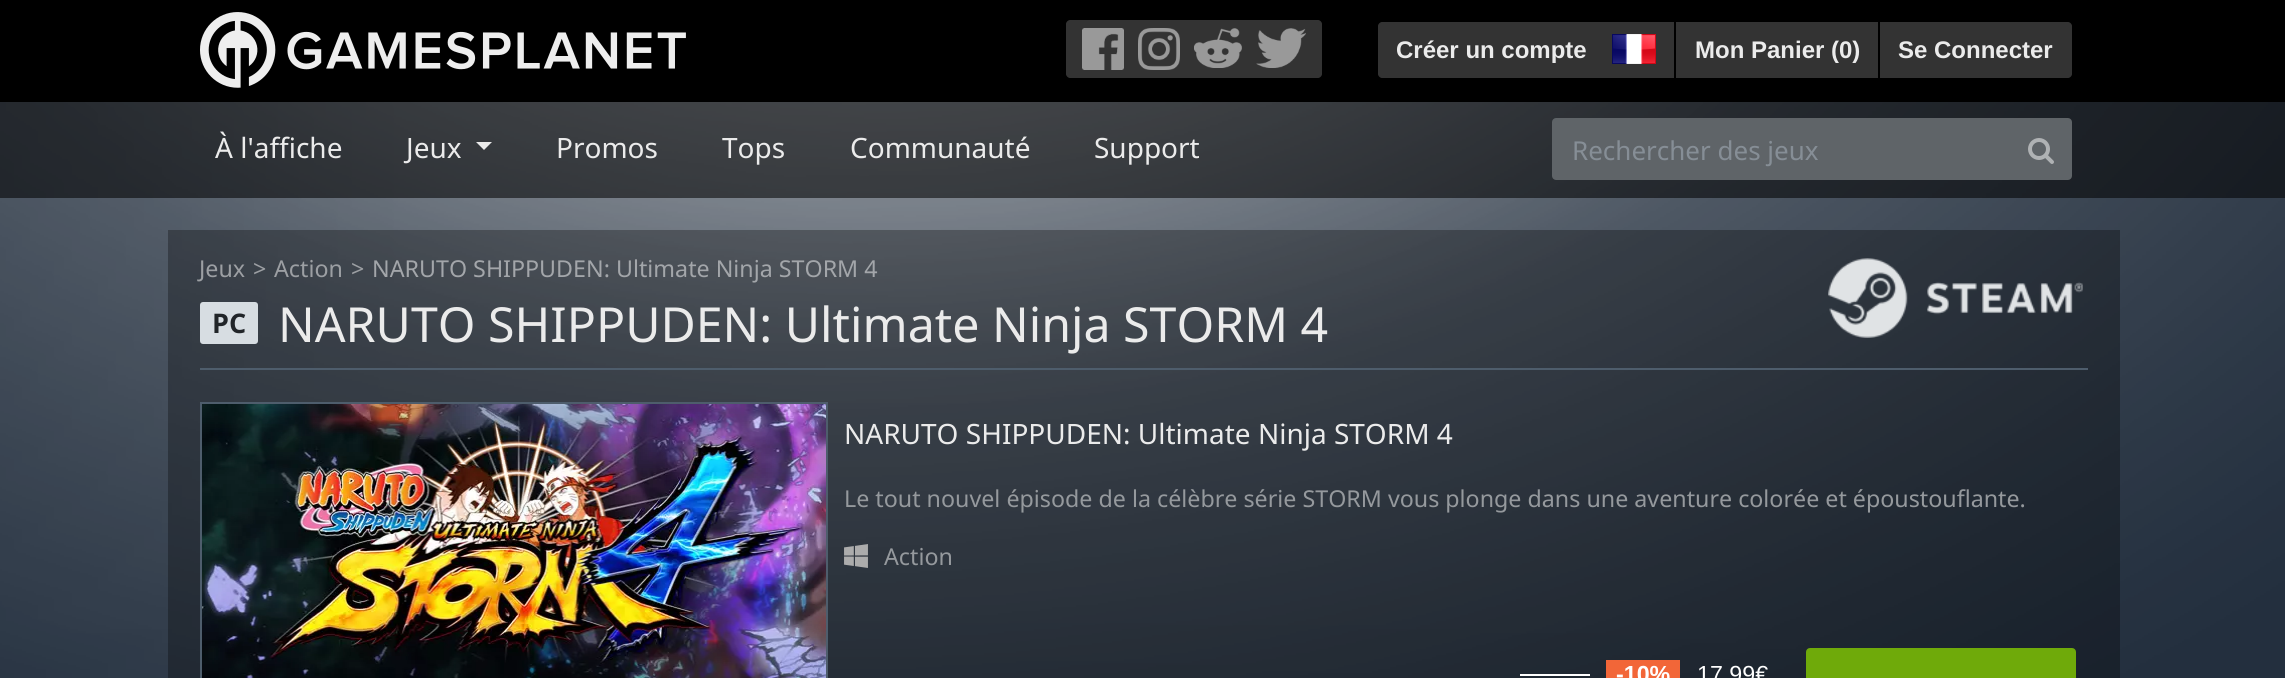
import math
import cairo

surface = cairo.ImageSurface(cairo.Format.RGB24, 2285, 678)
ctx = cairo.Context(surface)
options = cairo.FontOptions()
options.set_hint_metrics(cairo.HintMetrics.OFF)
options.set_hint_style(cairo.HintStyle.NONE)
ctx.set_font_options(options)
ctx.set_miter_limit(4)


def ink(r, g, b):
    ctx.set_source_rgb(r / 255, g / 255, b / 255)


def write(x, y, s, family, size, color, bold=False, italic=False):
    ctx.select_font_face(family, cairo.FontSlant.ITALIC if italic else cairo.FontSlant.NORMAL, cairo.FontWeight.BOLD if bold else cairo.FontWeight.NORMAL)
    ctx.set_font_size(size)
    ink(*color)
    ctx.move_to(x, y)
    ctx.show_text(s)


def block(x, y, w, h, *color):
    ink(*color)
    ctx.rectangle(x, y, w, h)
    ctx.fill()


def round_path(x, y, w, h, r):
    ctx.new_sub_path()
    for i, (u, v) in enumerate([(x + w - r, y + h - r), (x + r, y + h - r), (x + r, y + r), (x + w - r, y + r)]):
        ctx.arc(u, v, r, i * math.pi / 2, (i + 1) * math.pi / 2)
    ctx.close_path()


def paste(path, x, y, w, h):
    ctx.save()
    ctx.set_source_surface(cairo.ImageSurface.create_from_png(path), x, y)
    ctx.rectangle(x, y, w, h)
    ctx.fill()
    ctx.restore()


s1 = dict(family="Liberation Sans", size=24, color=(235, 235, 235), bold=True)
s2 = dict(family="Noto Sans", size=28, color=(235, 235, 235))
s3 = dict(family="Noto Sans", size=26, color=(134, 142, 150))
s4 = dict(family="Noto Sans", size=23.25, color=(156, 159, 163))
s5 = dict(family="Noto Sans", size=23.25, color=(163, 166, 170))
s6 = dict(family="Noto Sans", size=27, color=(33, 37, 41), bold=True)
s7 = dict(family="Noto Sans", size=48.3, color=(235, 235, 235))
s8 = dict(family="Noto Sans", size=23.25, color=(149, 153, 157))
s9 = dict(family="Liberation Sans", size=23.25, color=(255, 255, 255), bold=True)
s10 = dict(family="Liberation Sans", size=23.25, color=(255, 255, 255))

ink(35, 47, 62)
ctx.paint()
paste("pic1.png", 0, 102, 2285, 576)
block(0, 0, 2285, 102, 0, 0, 0)
paste("pic2.png", 200, 12, 486, 76)
ink(51, 51, 51)
ctx.new_path()
ctx.move_to(1070, 20)
ctx.line_to(1132, 20)
ctx.line_to(1132, 78)
ctx.line_to(1070, 78)
ctx.curve_to(1068, 78, 1066, 76, 1066, 74)
ctx.line_to(1066, 24)
ctx.curve_to(1066, 22, 1068, 20, 1070, 20)
ctx.close_path()
ctx.fill()
paste("pic3.png", 1082, 28, 42, 42)
block(1132, 20, 116, 58, 51, 51, 51)
paste("pic4.png", 1138, 28, 42, 42)
ctx.new_path()
ctx.move_to(1248, 20)
ctx.line_to(1318, 20)
ctx.curve_to(1320, 20, 1322, 22, 1322, 24)
ctx.line_to(1322, 74)
ctx.curve_to(1322, 76, 1320, 78, 1318, 78)
ctx.line_to(1248, 78)
ctx.close_path()
ctx.fill()
paste("pic5.png", 1256, 28, 50, 40)
paste("pic6.png", 1194, 28, 48, 40)
ctx.new_path()
ctx.move_to(1382, 22)
ctx.line_to(1604, 22)
ctx.line_to(1604, 78)
ctx.line_to(1382, 78)
ctx.curve_to(1380, 78, 1378, 76, 1378, 74)
ctx.line_to(1378, 26)
ctx.curve_to(1378, 24, 1380, 22, 1382, 22)
ctx.close_path()
ctx.fill()
write(1396, 58, "Créer un compte", **s1)
block(1604, 22, 70, 56, 51, 51, 51)
paste("pic7.png", 1612, 34, 44, 30)
block(1676, 22, 202, 56, 51, 51, 51)
write(1695, 58, "Mon Panier (0)", **s1)
ink(51, 51, 51)
ctx.new_path()
ctx.move_to(1880, 22)
ctx.line_to(2068, 22)
ctx.curve_to(2070, 22, 2072, 24, 2072, 26)
ctx.line_to(2072, 74)
ctx.curve_to(2072, 76, 2070, 78, 2068, 78)
ctx.line_to(1880, 78)
ctx.close_path()
ctx.fill()
write(1898, 58, "Se Connecter", **s1)
ctx.set_source_rgba(0, 0, 0, 0.55)
ctx.rectangle(0, 102, 2285, 96)
ctx.fill()
write(215, 158, "À l'affiche", **s2)
write(406, 158, "Jeux", **s2)
ctx.new_path()
ctx.move_to(476, 142)
ctx.line_to(492, 142)
ctx.line_to(484, 150)
ctx.close_path()
ctx.fill()
write(556, 158, "Promos", **s2)
write(722, 158, "Tops", **s2)
write(850, 158, "Communauté", **s2)
write(1094, 158, "Support", **s2)
ink(95, 100, 104)
ctx.new_path()
ctx.move_to(1556, 119)
ctx.line_to(2011, 119)
ctx.line_to(2011, 179)
ctx.line_to(1556, 179)
ctx.curve_to(1554.5, 179, 1553, 177.5, 1553, 176)
ctx.line_to(1553, 122)
ctx.curve_to(1553, 120.5, 1554.5, 119, 1556, 119)
ctx.close_path()
ctx.fill_preserve()
ctx.stroke()
write(1572, 160, "Rechercher des jeux", **s3)
ink(95, 100, 104)
ctx.new_path()
ctx.move_to(2011, 119)
ctx.line_to(2068, 119)
ctx.curve_to(2069.5, 119, 2071, 120.5, 2071, 122)
ctx.line_to(2071, 176)
ctx.curve_to(2071, 177.5, 2069.5, 179, 2068, 179)
ctx.line_to(2011, 179)
ctx.close_path()
ctx.fill_preserve()
ctx.stroke()
paste("pic8.png", 2028, 138, 26, 26)
ctx.set_source_rgba(0, 0, 0, 0.3)
ctx.rectangle(168, 230, 1952, 448)
ctx.fill()
write(199, 277, "Jeux", **s4)
write(253, 277, ">", **s4)
write(274, 277, "Action", **s4)
write(351, 277, ">", **s4)
write(372, 277, "NARUTO SHIPPUDEN: Ultimate Ninja STORM 4", **s5)
ink(215, 221, 226)
round_path(200, 302, 58, 42, 3)
ctx.fill()
write(212, 333, "PC", **s6)
block(200, 368, 1888, 2, 78, 93, 108)
write(278, 342, "NARUTO SHIPPUDEN: Ultimate Ninja STORM 4", **s7)
paste("pic9.png", 1828, 258, 255, 80)
ctx.rectangle(201, 403, 626, 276)
ink(78, 93, 108)
ctx.stroke()
paste("pic10.png", 202, 404, 624, 274)
write(844, 444, "NARUTO SHIPPUDEN: Ultimate Ninja STORM 4", **s2)
write(844, 507, "Le tout nouvel épisode de la célèbre série STORM vous plonge dans une aventure colorée et époustouflante.", **s8)
paste("pic11.png", 844, 544, 24, 24)
write(884, 565, "Action", **s8)
block(1606, 660, 74, 18, 242, 102, 56)
write(1616, 682, "-10%", **s9)
block(1520, 674, 70, 2, 255, 255, 255)
write(1697, 682, "17,99€", **s10)
ink(111, 170, 10)
round_path(1807, 649, 268, 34, 3)
ctx.fill_preserve()
ctx.stroke()
surface.write_to_png("screenshot.png")
